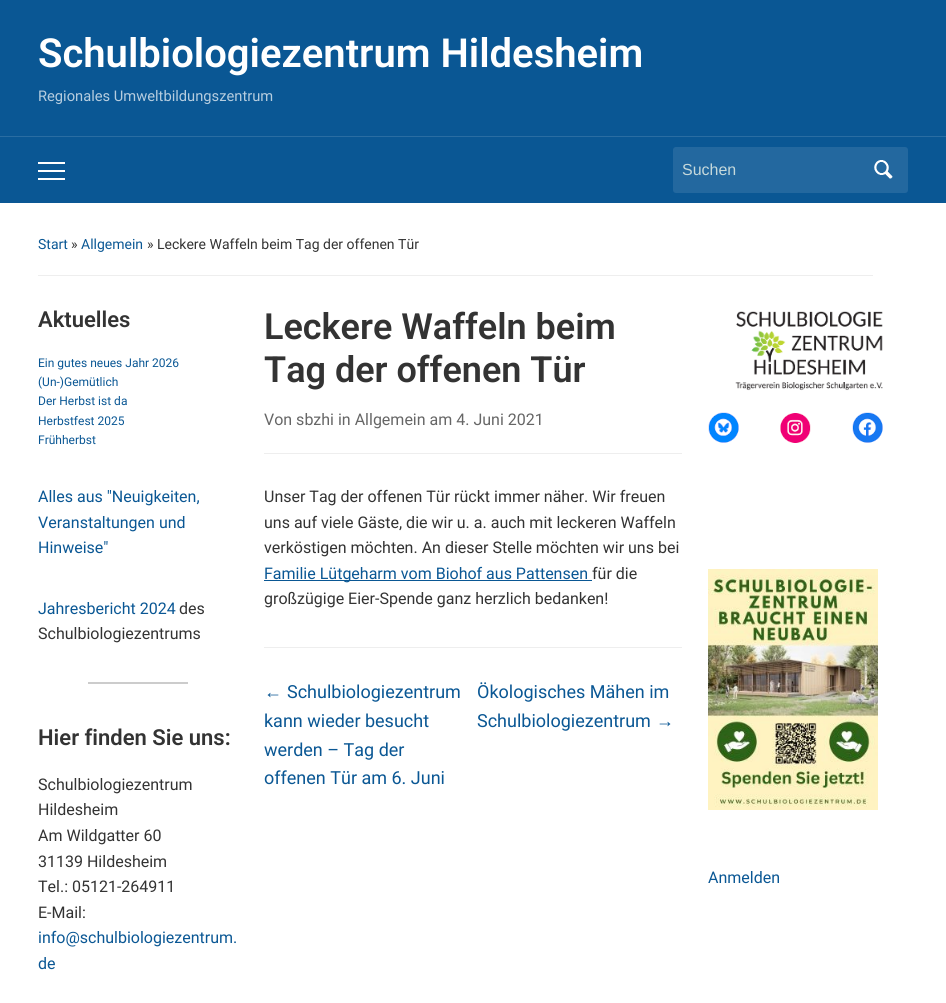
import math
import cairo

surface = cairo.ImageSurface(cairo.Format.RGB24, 946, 1003)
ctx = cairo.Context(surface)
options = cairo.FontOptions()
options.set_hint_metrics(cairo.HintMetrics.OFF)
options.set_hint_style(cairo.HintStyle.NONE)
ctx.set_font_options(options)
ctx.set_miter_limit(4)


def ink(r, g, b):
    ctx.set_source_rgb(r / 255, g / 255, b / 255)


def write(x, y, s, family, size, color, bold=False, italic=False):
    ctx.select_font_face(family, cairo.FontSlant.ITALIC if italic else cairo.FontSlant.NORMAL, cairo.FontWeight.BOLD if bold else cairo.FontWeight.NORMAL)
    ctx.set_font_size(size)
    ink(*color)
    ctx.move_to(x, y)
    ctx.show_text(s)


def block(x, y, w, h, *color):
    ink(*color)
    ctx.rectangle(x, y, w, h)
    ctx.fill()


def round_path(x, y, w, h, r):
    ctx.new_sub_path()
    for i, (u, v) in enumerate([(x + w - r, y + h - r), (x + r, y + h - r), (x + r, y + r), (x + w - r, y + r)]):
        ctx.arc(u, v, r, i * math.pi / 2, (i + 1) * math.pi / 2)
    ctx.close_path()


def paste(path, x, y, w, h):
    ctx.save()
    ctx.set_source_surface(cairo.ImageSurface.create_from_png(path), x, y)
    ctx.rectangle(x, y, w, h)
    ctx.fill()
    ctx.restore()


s1 = dict(family="Roboto SemiBold", size=40, color=(255, 255, 255))
s2 = dict(family="Roboto", size=14.7, color=(182, 205, 223))
s3 = dict(family="Liberation Sans", size=16, color=(198, 217, 219))
s4 = dict(family="Roboto", size=14, color=(10, 87, 148))
s5 = dict(family="Roboto", size=14, color=(51, 51, 51))
s6 = dict(family="Roboto SemiBold", size=22, color=(51, 51, 51))
s7 = dict(family="Roboto", size=12, color=(10, 87, 148))
s8 = dict(family="Roboto", size=16, color=(10, 87, 148))
s9 = dict(family="Roboto", size=16, color=(51, 51, 51))
s10 = dict(family="Roboto SemiBold", size=36, color=(51, 51, 51))
s11 = dict(family="Roboto", size=16, color=(102, 102, 102))
s12 = dict(family="Liberation Sans", size=18, color=(10, 87, 148))
s13 = dict(family="Roboto", size=18, color=(10, 87, 148))

ink(255, 255, 255)
ctx.paint()
block(0, 0, 946, 203, 10, 87, 148)
write(38, 67, "Schulbiologiezentrum Hildesheim", **s1)
write(38, 101, "Regionales Umweltbildungszentrum", **s2)
block(0, 136, 946, 1, 42, 109, 162)
block(38, 162, 27, 2, 255, 255, 255)
block(38, 170, 27, 2, 255, 255, 255)
block(38, 178, 27, 2, 255, 255, 255)
ink(35, 104, 159)
round_path(673, 147, 235, 46, 3)
ctx.fill()
write(682, 175, "Suchen", **s3)
paste("pic1.png", 874, 160, 19, 19)
block(38, 275, 835, 1, 238, 238, 238)
write(38, 249, "Start", **s4)
write(71, 249, "»", **s5)
write(81, 249, "Allgemein", **s4)
write(147, 249, "» Leckere Waffeln beim Tag der offenen Tür", **s5)
write(38, 327, "Aktuelles", **s6)
write(38, 367, "Ein gutes neues Jahr 2026", **s7)
write(38, 386, "(Un-)Gemütlich", **s7)
write(38, 405, "Der Herbst ist da", **s7)
write(38, 425, "Herbstfest 2025", **s7)
write(38, 444, "Frühherbst", **s7)
write(38, 502, "Alles aus \"Neuigkeiten,", **s8)
write(38, 528, "Veranstaltungen und", **s8)
write(38, 553, "Hinweise\"", **s8)
write(38, 614, "Jahresbericht 2024", **s8)
write(179, 614, "des", **s9)
write(38, 639, "Schulbiologiezentrums", **s9)
block(88, 682, 100, 2, 204, 204, 204)
write(38, 745, "Hier finden Sie uns:", **s6)
write(38, 790, "Schulbiologiezentrum", **s9)
write(38, 815, "Hildesheim", **s9)
write(38, 841, "Am Wildgatter 60", **s9)
write(38, 867, "31139 Hildesheim", **s9)
write(38, 892, "Tel.: 05121-264911", **s9)
write(38, 918, "E-Mail:", **s9)
write(38, 943, "info@schulbiologiezentrum.", **s8)
write(38, 969, "de", **s8)
write(264, 339, "Leckere Waffeln beim", **s10)
write(264, 382, "Tag der offenen Tür", **s10)
block(264, 453, 418, 1, 238, 238, 238)
write(264, 425, "Von sbzhi in Allgemein am 4. Juni 2021", **s11)
write(264, 502, "Unser Tag der offenen Tür rückt immer näher. Wir freuen", **s9)
write(264, 528, "uns auf viele Gäste, die wir u. a. auch mit leckeren Waffeln", **s9)
write(264, 553, "verköstigen möchten. An dieser Stelle möchten wir uns bei", **s9)
block(264, 580, 328, 1, 10, 87, 148)
write(264, 579, "Familie Lütgeharm vom Biohof aus Pattensen", **s8)
write(592, 579, "für die", **s9)
write(264, 604, "großzügige Eier-Spende ganz herzlich bedanken!", **s9)
block(264, 647, 418, 1, 238, 238, 238)
write(264, 698, "←", **s12)
write(287, 698, "Schulbiologiezentrum", **s13)
write(264, 727, "kann wieder besucht", **s13)
write(264, 756, "werden – Tag der", **s13)
write(264, 784, "offenen Tür am 6. Juni", **s13)
write(477, 698, "Ökologisches Mähen im", **s13)
write(477, 727, "Schulbiologiezentrum", **s13)
write(656, 727, "→", **s12)
paste("pic2.png", 735, 311, 148, 80)
paste("pic3.png", 708, 412, 31, 31)
paste("pic4.png", 780, 413, 31, 30)
paste("pic5.png", 852, 412, 31, 31)
paste("pic6.png", 708, 569, 170, 241)
write(708, 883, "Anmelden", **s8)
surface.write_to_png("screenshot.png")
